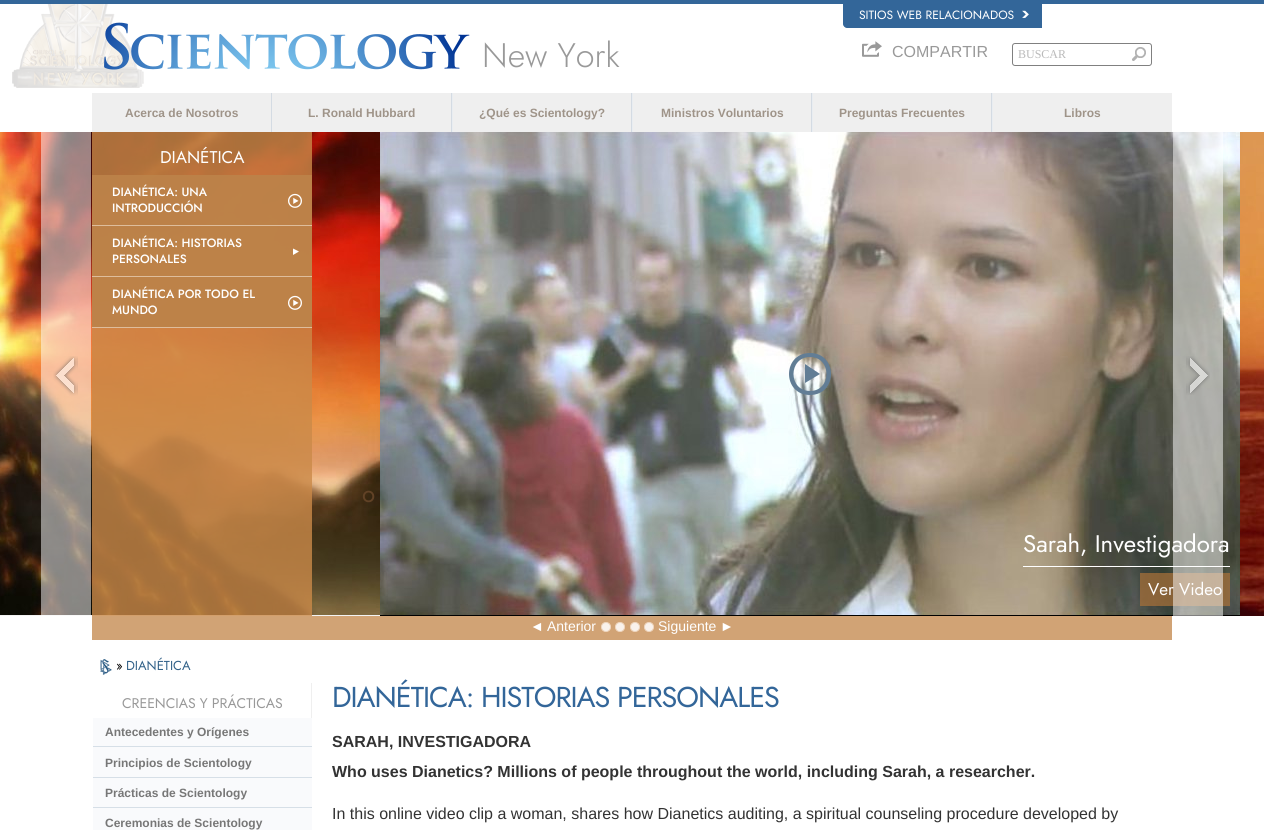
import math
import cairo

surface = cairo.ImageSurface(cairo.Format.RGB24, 1264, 830)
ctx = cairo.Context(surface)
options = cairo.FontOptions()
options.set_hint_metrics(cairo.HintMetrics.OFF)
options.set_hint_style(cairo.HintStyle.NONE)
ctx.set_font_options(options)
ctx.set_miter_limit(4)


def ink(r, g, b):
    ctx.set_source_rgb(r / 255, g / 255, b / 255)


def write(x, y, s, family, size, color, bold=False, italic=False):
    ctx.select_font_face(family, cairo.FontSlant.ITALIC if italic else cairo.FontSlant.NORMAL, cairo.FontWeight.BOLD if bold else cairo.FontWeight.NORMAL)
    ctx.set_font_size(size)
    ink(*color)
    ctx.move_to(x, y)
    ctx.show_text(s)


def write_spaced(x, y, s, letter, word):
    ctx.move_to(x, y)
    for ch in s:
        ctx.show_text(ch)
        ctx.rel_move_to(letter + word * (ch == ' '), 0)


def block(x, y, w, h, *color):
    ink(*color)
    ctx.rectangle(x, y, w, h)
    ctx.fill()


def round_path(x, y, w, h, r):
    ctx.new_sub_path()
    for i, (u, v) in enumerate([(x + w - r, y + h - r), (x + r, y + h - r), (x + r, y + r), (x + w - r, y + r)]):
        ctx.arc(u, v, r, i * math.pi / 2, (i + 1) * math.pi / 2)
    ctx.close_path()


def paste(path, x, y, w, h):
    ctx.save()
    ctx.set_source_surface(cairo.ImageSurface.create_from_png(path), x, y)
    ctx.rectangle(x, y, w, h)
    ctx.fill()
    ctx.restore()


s1 = dict(family="Jost", size=12, color=(255, 255, 255))
s2 = dict(family="Jost Light", size=34, color=(153, 153, 153))
s3 = dict(family="Liberation Sans", size=16, color=(153, 153, 153))
s4 = dict(family="Liberation Serif", size=12, color=(186, 186, 186))
s5 = dict(family="Liberation Sans", size=12, color=(159, 148, 137), bold=True)
s6 = dict(family="Jost", size=24, color=(255, 255, 255))
s7 = dict(family="Jost", size=17, color=(255, 255, 255))
s8 = dict(family="Jost Medium", size=12, color=(255, 255, 255))
s9 = dict(family="Jost", size=24, color=(97, 66, 38))
s10 = dict(family="Liberation Sans", size=14, color=(255, 255, 255))
s11 = dict(family="Jost", size=13, color=(0, 0, 0))
s12 = dict(family="Jost", size=13, color=(50, 97, 136))
s13 = dict(family="Jost", size=14, color=(153, 153, 153))
s14 = dict(family="Liberation Sans", size=12, color=(119, 119, 119), bold=True)
s15 = dict(family="Liberation Sans", size=16, color=(51, 51, 51), bold=True)
s16 = dict(family="Liberation Sans", size=16, color=(51, 51, 51))

ink(255, 255, 255)
ctx.paint()
block(0, 0, 1264, 4, 51, 102, 153)
ctx.new_path()
ctx.move_to(843, 4)
ctx.line_to(1042, 4)
ctx.line_to(1042, 28)
ctx.line_to(847, 28)
ctx.curve_to(845, 28, 843, 26, 843, 24)
ctx.close_path()
ctx.fill()
write(859, 19, "SITIOS WEB RELACIONADOS", **s1)
paste("pic1.png", 1022, 10, 7, 8)
paste("pic2.png", 12, 4, 132, 84)
paste("pic3.png", 104, 22, 366, 48)
write(482, 67, "New York", **s2)
paste("pic4.png", 862, 41, 20, 16)
write(892, 57, "COMPARTIR", **s3)
paste("pic5.png", 1132, 47, 14, 14)
round_path(1012.5, 43.5, 139, 22, 2.5)
ink(128, 128, 128)
ctx.set_line_width(1)
ctx.stroke()
write(1018, 58, "BUSCAR", **s4)
block(92, 93, 179, 39, 239, 239, 239)
block(271, 93, 1, 39, 212, 219, 227)
write(125, 117, "Acerca de Nosotros", **s5)
block(272, 93, 179, 39, 239, 239, 239)
block(451, 93, 1, 39, 212, 219, 227)
write(308, 117, "L. Ronald Hubbard", **s5)
block(453, 93, 178, 39, 239, 239, 239)
block(631, 93, 1, 39, 212, 219, 227)
block(452, 93, 1, 39, 233, 237, 241)
write(479, 117, "¿Qué es Scientology?", **s5)
block(633, 93, 178, 39, 239, 239, 239)
block(811, 93, 1, 39, 212, 219, 227)
block(632, 93, 1, 39, 233, 237, 241)
write(661, 117, "Ministros Voluntarios", **s5)
block(813, 93, 178, 39, 239, 239, 239)
block(991, 93, 1, 39, 212, 219, 227)
block(812, 93, 1, 39, 233, 237, 241)
write(839, 117, "Preguntas Frecuentes", **s5)
block(993, 93, 179, 39, 239, 239, 239)
block(992, 93, 1, 39, 233, 237, 241)
write(1064, 117, "Libros", **s5)
block(0, 615, 380, 1, 243, 243, 243)
paste("pic10.png", 0, 132, 380, 483)
ctx.set_source_rgba(1, 1, 1, 0.5)
ctx.rectangle(41, 132, 50, 484)
ctx.fill()
paste("pic6.png", 53, 356, 25, 40)
block(380, 615, 860, 1, 0, 0, 0)
paste("pic12.png", 380, 132, 860, 483)
block(1023, 566, 207, 1, 255, 255, 255)
write(1023, 552, "Sarah, Investigadora", **s6)
ctx.set_source_rgba(0.675, 0.451, 0.224, 0.7)
ctx.rectangle(1140, 573, 90, 33)
ctx.fill()
write(1148, 595, "Ver Video", **s7)
ctx.set_source_rgba(1, 1, 1, 0.5)
ctx.rectangle(1173, 132, 50, 484)
ctx.fill()
paste("pic7.png", 1186, 356, 24, 39)
ctx.set_source_rgba(0.792, 0.541, 0.286, 0.8)
ctx.rectangle(92, 132, 220, 484)
ctx.fill()
write(160, 163, "DIANÉTICA", **s7)
ctx.set_source_rgba(0.659, 0.439, 0.22, 0.8)
ctx.rectangle(92, 175, 220, 50)
ctx.fill()
ctx.set_source_rgba(0.769, 0.541, 0.31, 0.7)
ctx.rectangle(92, 175, 220, 50)
ctx.fill()
block(92, 225, 220, 1, 222, 189, 156)
write(112, 196, "DIANÉTICA: UNA", **s8)
write(112, 212, "INTRODUCCIÓN", **s8)
paste("pic8.png", 288, 193, 14, 15)
ctx.set_source_rgba(0.659, 0.439, 0.22, 0.8)
ctx.rectangle(92, 226, 220, 50)
ctx.fill()
ctx.set_source_rgba(0.769, 0.541, 0.31, 0.7)
ctx.rectangle(92, 226, 220, 50)
ctx.fill()
block(92, 276, 220, 1, 222, 189, 156)
write(112, 247, "DIANÉTICA: HISTORIAS", **s8)
ctx.new_path()
ctx.move_to(293, 248.5)
ctx.line_to(293, 255)
ctx.line_to(299, 251.5)
ctx.close_path()
ctx.fill()
write(112, 263, "PERSONALES", **s8)
ctx.set_source_rgba(0.659, 0.439, 0.22, 0.8)
ctx.rectangle(92, 277, 220, 50)
ctx.fill()
ctx.set_source_rgba(0.769, 0.541, 0.31, 0.7)
ctx.rectangle(92, 277, 220, 50)
ctx.fill()
block(92, 327, 220, 1, 222, 189, 156)
write(112, 298, "DIANÉTICA POR TODO EL", **s8)
write(112, 314, "MUNDO", **s8)
paste("pic9.png", 288, 295, 14, 15)
write(362, 502, "o", **s9)
paste("pic11.png", 1240, 132, 24, 484)
ink(98, 125, 149)
ctx.new_path()
ctx.move_to(810, 353)
ctx.curve_to(782, 353, 782, 395, 810, 395)
ctx.curve_to(838, 395, 838, 353, 810, 353)
ctx.close_path()
ctx.move_to(810, 391)
ctx.curve_to(788, 391, 788, 357, 810, 357)
ctx.curve_to(832, 357, 832, 391, 810, 391)
ctx.close_path()
ctx.move_to(805, 364)
ctx.line_to(820, 374)
ctx.line_to(805, 383)
ctx.close_path()
ctx.fill()
block(92, 616, 1080, 24, 209, 163, 117)
write(530, 631, "◄", **s10)
write(547, 631, "Anterior", **s10)
ink(249, 242, 236)
ctx.new_path()
ctx.arc(606, 627, 4.5, 0, 2 * math.pi)
ctx.fill_preserve()
ink(239, 214, 190)
ctx.stroke()
ink(249, 242, 236)
ctx.arc(620, 627, 4.5, 0, 2 * math.pi)
ctx.fill_preserve()
ink(239, 214, 190)
ctx.stroke()
ink(249, 242, 236)
ctx.arc(635, 627, 4.5, 0, 2 * math.pi)
ctx.fill_preserve()
ink(239, 214, 190)
ctx.stroke()
ink(249, 242, 236)
ctx.arc(649, 627, 4.5, 0, 2 * math.pi)
ctx.fill_preserve()
ink(239, 214, 190)
ctx.stroke()
write(658, 631, "Siguiente", **s10)
write(720, 631, "►", **s10)
paste("pic13.png", 100, 659, 12, 16)
write(116, 670, "»", **s11)
write(126, 670, "DIANÉTICA", **s12)
block(311, 683, 1, 35, 239, 239, 239)
write(122, 708, "CREENCIAS Y PRÁCTICAS", **s13)
block(93, 718, 219, 112, 249, 250, 252)
block(93, 746, 219, 1, 214, 223, 231)
write(105, 736, "Antecedentes y Orígenes", **s14)
block(93, 777, 219, 1, 214, 223, 231)
write(105, 767, "Principios de Scientology", **s14)
block(93, 807, 219, 1, 214, 223, 231)
write(105, 797, "Prácticas de Scientology", **s14)
write(105, 827, "Ceremonias de Scientology", **s14)
ctx.select_font_face("Jost")
ctx.set_font_size(28.75)
ink(51, 102, 153)
write_spaced(332, 707, "DIANÉTICA: HISTORIAS PERSONALES", -1, 0)
write(332, 747, "SARAH, INVESTIGADORA", **s15)
write(332, 777, "Who uses Dianetics? Millions of people throughout the world, including Sarah, a researcher.", **s15)
write(332, 819, "In this online video clip a woman, shares how Dianetics auditing, a spiritual counseling procedure developed by", **s16)
surface.write_to_png("screenshot.png")
